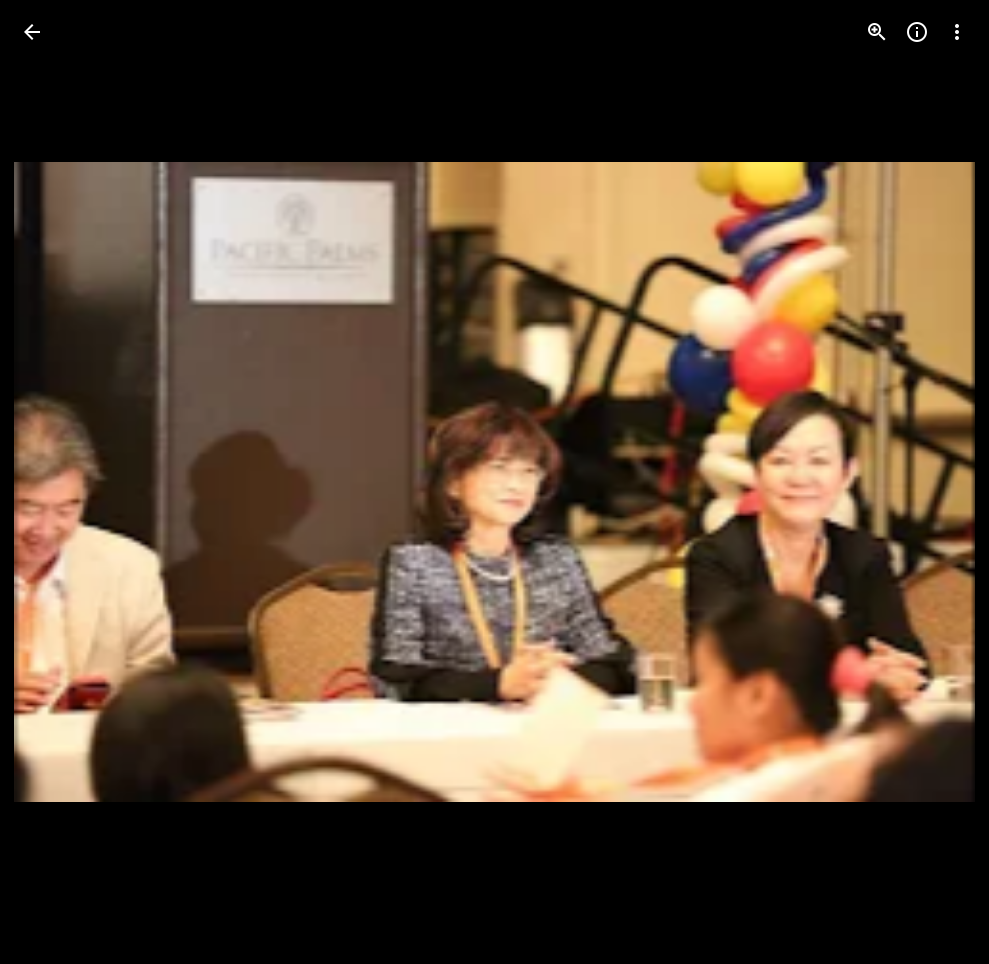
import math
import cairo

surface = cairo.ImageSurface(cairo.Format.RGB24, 989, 964)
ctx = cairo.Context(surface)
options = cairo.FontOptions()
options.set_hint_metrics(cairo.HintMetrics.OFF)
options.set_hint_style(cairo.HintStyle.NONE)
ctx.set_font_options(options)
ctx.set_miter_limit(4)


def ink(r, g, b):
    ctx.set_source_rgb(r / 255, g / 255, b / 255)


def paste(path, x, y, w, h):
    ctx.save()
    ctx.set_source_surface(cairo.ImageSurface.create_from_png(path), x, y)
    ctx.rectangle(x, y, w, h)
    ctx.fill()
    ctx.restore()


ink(0, 0, 0)
ctx.paint()
paste("pic1.png", 24, 24, 16, 16)
paste("pic2.png", 868, 23, 18, 18)
paste("pic3.png", 907, 22, 20, 20)
paste("pic4.png", 955, 24, 4, 16)
paste("pic5.png", 14, 162, 961, 640)
surface.write_to_png("screenshot.png")
